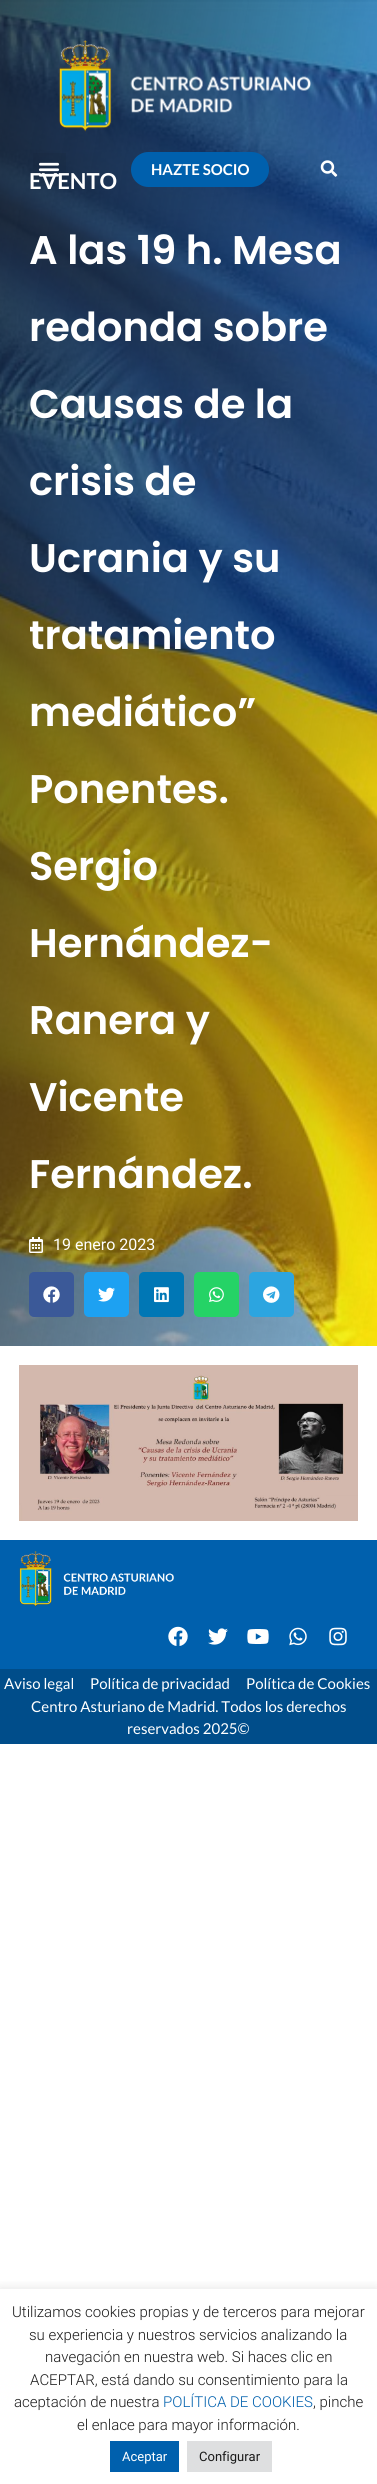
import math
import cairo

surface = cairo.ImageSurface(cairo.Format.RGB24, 377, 2484)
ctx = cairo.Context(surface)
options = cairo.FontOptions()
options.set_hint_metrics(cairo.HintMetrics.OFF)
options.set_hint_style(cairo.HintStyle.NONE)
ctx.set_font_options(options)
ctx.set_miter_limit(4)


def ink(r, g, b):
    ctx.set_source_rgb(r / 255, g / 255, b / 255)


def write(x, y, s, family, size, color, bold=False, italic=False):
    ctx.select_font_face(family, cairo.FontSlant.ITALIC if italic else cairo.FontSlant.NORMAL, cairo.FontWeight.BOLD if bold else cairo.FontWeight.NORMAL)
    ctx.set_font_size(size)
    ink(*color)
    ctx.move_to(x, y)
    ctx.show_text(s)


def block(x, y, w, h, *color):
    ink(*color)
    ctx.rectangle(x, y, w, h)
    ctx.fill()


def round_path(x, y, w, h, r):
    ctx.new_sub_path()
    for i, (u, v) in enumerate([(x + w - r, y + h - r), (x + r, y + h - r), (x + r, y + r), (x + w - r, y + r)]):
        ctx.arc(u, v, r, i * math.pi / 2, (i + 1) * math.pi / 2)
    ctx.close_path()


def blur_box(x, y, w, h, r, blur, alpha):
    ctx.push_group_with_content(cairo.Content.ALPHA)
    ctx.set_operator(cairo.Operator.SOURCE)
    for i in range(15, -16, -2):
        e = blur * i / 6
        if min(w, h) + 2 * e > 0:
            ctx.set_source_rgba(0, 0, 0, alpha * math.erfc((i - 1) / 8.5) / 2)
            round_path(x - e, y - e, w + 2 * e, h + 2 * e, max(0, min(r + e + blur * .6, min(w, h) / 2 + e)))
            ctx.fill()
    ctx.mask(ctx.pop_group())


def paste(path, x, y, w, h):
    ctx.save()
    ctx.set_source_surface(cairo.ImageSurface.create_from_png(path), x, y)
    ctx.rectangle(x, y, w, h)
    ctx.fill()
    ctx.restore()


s1 = dict(family="Lato", size=22, color=(255, 255, 255), bold=True)
s2 = dict(family="Lato", size=15, color=(255, 255, 255), bold=True)
s3 = dict(family="Poppins SemiBold", size=40, color=(255, 255, 255))
s4 = dict(family="Roboto", size=16, color=(255, 255, 255))
s5 = dict(family="Lato", size=15, color=(255, 255, 255))
s6 = dict(family="Roboto Light", size=15, color=(26, 26, 26))
s7 = dict(family="Roboto Light", size=15, color=(0, 96, 173))
s8 = dict(family="Roboto", size=13, color=(255, 255, 255))
s9 = dict(family="Roboto", size=13, color=(26, 26, 26))

ink(255, 255, 255)
ctx.paint()
paste("pic4.png", 0, 0, 377, 1346)
paste("pic1.png", 59, 40, 252, 92)
ctx.set_source_rgba(0, 0, 0, 0.05)
ctx.rectangle(33, 153, 33, 33)
ctx.fill()
write(29, 189, "EVENTO", **s1)
paste("pic2.png", 38, 162, 22, 15)
ink(0, 96, 173)
round_path(131, 152, 138, 35, 17.5)
ctx.fill()
write(151, 175, "HAZTE SOCIO", **s2)
paste("pic3.png", 320, 160, 18, 17)
write(29, 264, "A las 19 h. Mesa", **s3)
write(29, 341, "redonda sobre", **s3)
write(29, 418, "Causas de la", **s3)
write(29, 495, "crisis de", **s3)
write(29, 572, "Ucrania y su", **s3)
write(29, 649, "tratamiento", **s3)
write(29, 726, "mediático”", **s3)
write(29, 803, "Ponentes.", **s3)
write(29, 880, "Sergio", **s3)
write(29, 957, "Hernández-", **s3)
write(29, 1034, "Ranera y", **s3)
write(29, 1111, "Vicente", **s3)
write(29, 1188, "Fernández.", **s3)
paste("pic5.png", 29, 1237, 14, 16)
write(53, 1250, "19 enero 2023", **s4)
ink(59, 89, 152)
round_path(29, 1272, 45, 45, 5)
ctx.fill()
paste("pic6.png", 43, 1286, 17, 17)
ink(29, 161, 242)
round_path(84, 1272, 45, 45, 5)
ctx.fill()
paste("pic7.png", 98, 1287, 17, 15)
ink(0, 119, 181)
round_path(139, 1272, 45, 45, 5)
ctx.fill()
paste("pic8.png", 154, 1287, 15, 16)
ink(37, 211, 102)
round_path(194, 1272, 45, 45, 5)
ctx.fill()
paste("pic9.png", 209, 1287, 15, 15)
ink(44, 165, 224)
round_path(249, 1272, 45, 45, 5)
ctx.fill()
paste("pic10.png", 263, 1286, 17, 17)
paste("pic11.png", 19, 1365, 339, 156)
block(0, 1540, 377, 129, 0, 96, 173)
paste("pic12.png", 19, 1551, 155, 56)
paste("pic13.png", 168, 1626, 20, 20)
paste("pic14.png", 208, 1628, 20, 17)
paste("pic15.png", 247, 1629, 22, 15)
paste("pic16.png", 289, 1627, 18, 19)
paste("pic17.png", 329, 1627, 18, 19)
block(0, 1669, 377, 75, 0, 77, 138)
write(4, 1689, "Aviso legal", **s5)
write(90, 1689, "Política de privacidad", **s5)
write(246, 1689, "Política de Cookies", **s5)
write(31, 1712, "Centro Asturiano de Madrid. Todos los derechos", **s5)
write(127, 1734, "reservados 2025©", **s5)
ctx.save()
ctx.rectangle(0, 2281, 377, 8)
ctx.clip()
ink(172, 171, 171)
blur_box(0, 2288, 377, 195, 0, 5, 0.3)
ctx.restore()
write(12, 2317, "Utilizamos cookies propias y de terceros para mejorar", **s6)
write(29, 2340, "su experiencia y nuestros servicios analizando la", **s6)
write(45, 2362, "navegación en nuestra web. Si haces clic en", **s6)
write(30, 2385, "ACEPTAR, está dando su consentimiento para la", **s6)
write(14, 2407, "aceptación de nuestra", **s6)
write(163, 2407, "POLÍTICA DE COOKIES", **s7)
write(313, 2407, ", pinche", **s6)
write(77, 2430, "el enlace para mayor información.", **s6)
block(110, 2441, 69, 31, 0, 96, 173)
write(122, 2461, "Aceptar", **s8)
block(187, 2441, 85, 31, 222, 223, 224)
write(199, 2461, "Configurar", **s9)
surface.write_to_png("screenshot.png")
